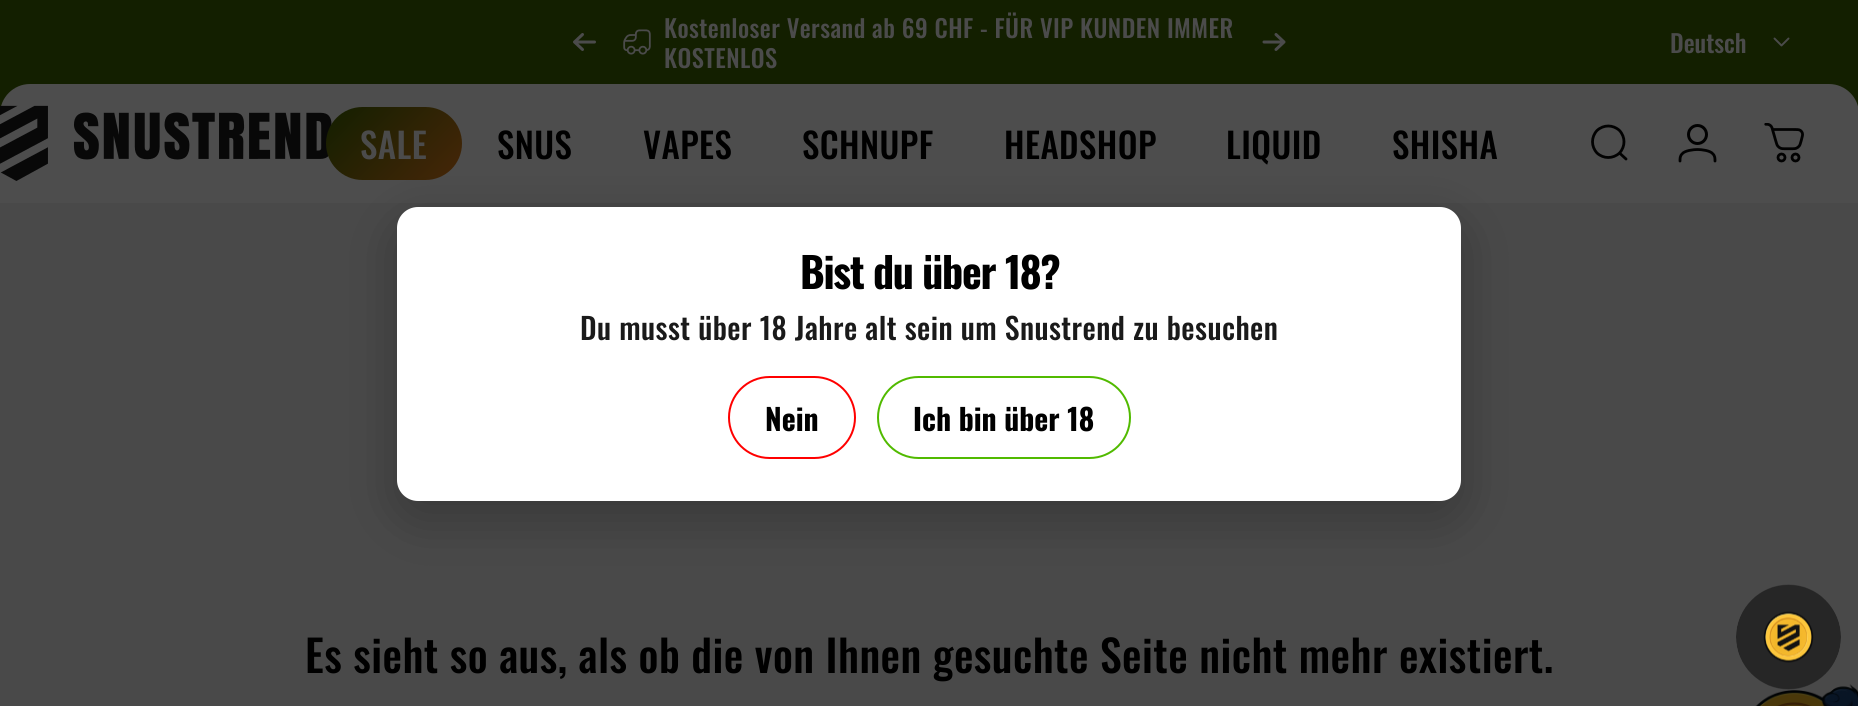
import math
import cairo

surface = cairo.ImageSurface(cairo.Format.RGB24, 1858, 706)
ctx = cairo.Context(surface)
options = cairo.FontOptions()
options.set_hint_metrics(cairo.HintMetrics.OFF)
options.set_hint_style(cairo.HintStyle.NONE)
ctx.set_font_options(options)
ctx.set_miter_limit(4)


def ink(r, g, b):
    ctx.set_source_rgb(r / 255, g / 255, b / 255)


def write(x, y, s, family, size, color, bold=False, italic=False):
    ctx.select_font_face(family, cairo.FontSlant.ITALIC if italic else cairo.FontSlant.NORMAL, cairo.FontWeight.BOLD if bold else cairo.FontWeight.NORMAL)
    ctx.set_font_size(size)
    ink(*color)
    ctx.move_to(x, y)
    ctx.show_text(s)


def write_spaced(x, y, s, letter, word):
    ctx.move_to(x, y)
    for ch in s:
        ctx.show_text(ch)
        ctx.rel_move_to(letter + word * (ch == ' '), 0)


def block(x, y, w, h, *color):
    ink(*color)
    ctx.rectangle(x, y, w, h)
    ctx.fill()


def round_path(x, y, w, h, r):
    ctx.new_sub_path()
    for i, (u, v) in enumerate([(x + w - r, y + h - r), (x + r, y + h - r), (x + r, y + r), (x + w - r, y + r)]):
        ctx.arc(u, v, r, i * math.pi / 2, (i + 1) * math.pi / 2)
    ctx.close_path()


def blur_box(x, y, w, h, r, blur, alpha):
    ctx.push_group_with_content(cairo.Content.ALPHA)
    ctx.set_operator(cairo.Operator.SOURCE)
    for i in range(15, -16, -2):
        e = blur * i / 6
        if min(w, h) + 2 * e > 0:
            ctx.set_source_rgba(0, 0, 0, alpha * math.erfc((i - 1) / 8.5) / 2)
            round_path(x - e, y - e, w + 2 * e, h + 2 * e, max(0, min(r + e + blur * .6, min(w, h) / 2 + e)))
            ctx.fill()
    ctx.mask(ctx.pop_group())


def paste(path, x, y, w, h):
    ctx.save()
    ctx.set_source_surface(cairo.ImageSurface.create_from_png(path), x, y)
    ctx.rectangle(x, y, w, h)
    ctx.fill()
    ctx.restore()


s1 = dict(family="Oswald Medium", size=24.5, color=(75, 75, 75))
s2 = dict(family="Oswald", size=29.75, color=(0, 0, 0), bold=True)

ink(73, 73, 73)
ctx.paint()
block(0, 0, 1858, 30, 19, 31, 0)
ctx.new_path()
ctx.move_to(30, 0)
ctx.line_to(1829, 0)
ctx.curve_to(1845.5, 0, 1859, 13.5, 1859, 30)
ctx.line_to(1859, 114)
ctx.line_to(0, 114)
ctx.line_to(0, 30)
ctx.curve_to(0, 13.5, 13.5, 0, 30, 0)
ctx.close_path()
ctx.fill()
ctx.new_path()
ctx.move_to(582.5, 34.5)
ctx.line_to(574.5, 42)
ctx.move_to(574.5, 42)
ctx.line_to(582.5, 49.5)
ctx.move_to(574.5, 42)
ctx.line_to(594.5, 42)
ink(75, 75, 75)
ctx.set_line_width(3)
ctx.set_line_cap(cairo.LineCap.ROUND)
ctx.set_line_join(cairo.LineJoin.ROUND)
ctx.stroke()
paste("pic1.png", 623, 29, 28, 26)
ctx.select_font_face("Oswald Medium")
ctx.set_font_size(24.5)
write_spaced(664, 38, "Kostenloser Versand ab 69 CHF - FÜR VIP KUNDEN IMMER", 0.45, 0)
write_spaced(664, 68, "KOSTENLOS", 0.45, 0)
ctx.new_path()
ctx.move_to(1264, 42)
ctx.line_to(1284, 42)
ctx.move_to(1284, 42)
ctx.line_to(1276, 34.5)
ctx.move_to(1284, 42)
ctx.line_to(1276, 49.5)
ctx.stroke()
write(1670, 53, "Deutsch", **s1)
ctx.new_path()
ctx.move_to(1774.5, 38.5)
ctx.line_to(1781.5, 45.5)
ctx.line_to(1788.5, 38.5)
ctx.set_line_width(1.9)
ctx.stroke()
ink(77, 77, 77)
ctx.new_path()
ctx.move_to(30, 84)
ctx.line_to(1829, 84)
ctx.curve_to(1845.5, 84, 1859, 97.5, 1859, 114)
ctx.line_to(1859, 203)
ctx.line_to(0, 203)
ctx.line_to(0, 114)
ctx.curve_to(0, 97.5, 13.5, 84, 30, 84)
ctx.close_path()
ctx.fill()
paste("pic2.png", 0, 105, 332, 76)
gradient = cairo.LinearGradient(340, 92, 447, 195)
gradient.add_color_stop_rgba(0, 0.075, 0.122, 0, 1)
gradient.add_color_stop_rgba(1, 0.275, 0.149, 0.031, 1)
ctx.set_source(gradient)
round_path(326, 107, 136, 73, 36.5)
ctx.fill()
ctx.set_font_size(35)
ink(75, 75, 75)
write_spaced(360, 159, "SALE", 0.45, 0)
ink(0, 0, 0)
write_spaced(497, 159, "SNUS", 0.45, 0)
write_spaced(643, 159, "VAPES", 0.45, 0)
write_spaced(802, 159, "SCHNUPF", 0.45, 0)
write_spaced(1004, 159, "HEADSHOP", 0.45, 0)
write_spaced(1226, 159, "LIQUID", 0.45, 0)
write_spaced(1392, 159, "SHISHA", 0.45, 0)
ctx.new_path()
ctx.move_to(1626, 159)
ctx.line_to(1619.5, 153)
ctx.move_to(1619.5, 153)
ctx.curve_to(1625.5, 146.5, 1625.5, 137, 1619.5, 130.5)
ctx.curve_to(1613, 124.5, 1603.5, 124.5, 1597, 130.5)
ctx.curve_to(1591, 137, 1591, 146.5, 1597, 153)
ctx.curve_to(1603.5, 159, 1613, 159, 1619.5, 153)
ctx.close_path()
ink(1, 1, 1)
ctx.set_line_width(2.8)
ctx.set_line_join(cairo.LineJoin.MITER)
ctx.stroke()
ctx.arc(1697.5, 134.5, 9, 0, 2 * math.pi)
ctx.set_line_width(3)
ctx.set_line_cap(cairo.LineCap.BUTT)
ctx.stroke()
ctx.new_path()
ctx.move_to(1697.5, 149.5)
ctx.curve_to(1701.5, 149.5, 1710.5, 150.5, 1713, 154)
ctx.curve_to(1715, 156, 1715, 158.5, 1715, 161)
ctx.move_to(1697.5, 149.5)
ctx.curve_to(1693.5, 149.5, 1684.5, 150.5, 1682, 154)
ctx.curve_to(1680, 156, 1680, 158.5, 1680, 161)
ctx.set_line_width(2.8)
ctx.set_line_cap(cairo.LineCap.ROUND)
ctx.stroke()
paste("pic3.png", 1764, 123, 40, 40)
ink(0, 0, 0)
blur_box(397, 224, 1064, 294, 21, 26, 0.25)
ink(255, 255, 255)
round_path(397, 207, 1064, 294, 21)
ctx.fill()
ctx.select_font_face("Oswald", cairo.FontSlant.NORMAL, cairo.FontWeight.BOLD)
ctx.set_font_size(42)
ink(0, 0, 0)
write_spaced(800, 289, "Bist du über 18?", -1.25, 0)
ctx.select_font_face("Oswald Medium")
ctx.set_font_size(29.75)
ink(26, 26, 26)
write_spaced(580, 340, "Du musst über 18 Jahre alt sein um Snustrend zu besuchen", 0.45, 0)
round_path(729, 377, 126, 81, 40.5)
ink(255, 0, 0)
ctx.set_line_width(2)
ctx.set_line_cap(cairo.LineCap.BUTT)
ctx.stroke()
write(765, 431, "Nein", **s2)
round_path(878, 377, 252, 81, 40.5)
ink(81, 186, 0)
ctx.stroke()
write(913, 431, "Ich bin über 18", **s2)
ctx.select_font_face("Oswald Medium")
ctx.set_font_size(43.75)
write_spaced(305, 673, "Es sieht so aus, als ob die von Ihnen gesuchte Seite nicht mehr existiert.", 0.45, 0)
paste("pic5.png", 1755, 684, 103, 22)
paste("pic4.png", 1736, 584, 105, 106)
surface.write_to_png("screenshot.png")
